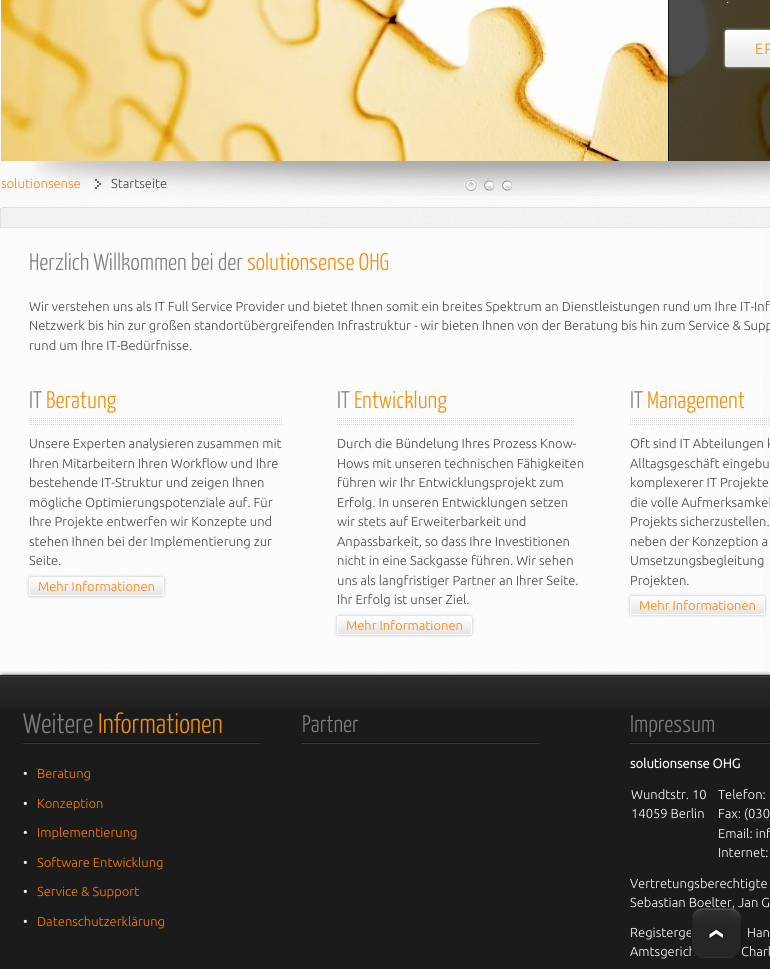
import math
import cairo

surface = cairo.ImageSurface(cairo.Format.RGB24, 770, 969)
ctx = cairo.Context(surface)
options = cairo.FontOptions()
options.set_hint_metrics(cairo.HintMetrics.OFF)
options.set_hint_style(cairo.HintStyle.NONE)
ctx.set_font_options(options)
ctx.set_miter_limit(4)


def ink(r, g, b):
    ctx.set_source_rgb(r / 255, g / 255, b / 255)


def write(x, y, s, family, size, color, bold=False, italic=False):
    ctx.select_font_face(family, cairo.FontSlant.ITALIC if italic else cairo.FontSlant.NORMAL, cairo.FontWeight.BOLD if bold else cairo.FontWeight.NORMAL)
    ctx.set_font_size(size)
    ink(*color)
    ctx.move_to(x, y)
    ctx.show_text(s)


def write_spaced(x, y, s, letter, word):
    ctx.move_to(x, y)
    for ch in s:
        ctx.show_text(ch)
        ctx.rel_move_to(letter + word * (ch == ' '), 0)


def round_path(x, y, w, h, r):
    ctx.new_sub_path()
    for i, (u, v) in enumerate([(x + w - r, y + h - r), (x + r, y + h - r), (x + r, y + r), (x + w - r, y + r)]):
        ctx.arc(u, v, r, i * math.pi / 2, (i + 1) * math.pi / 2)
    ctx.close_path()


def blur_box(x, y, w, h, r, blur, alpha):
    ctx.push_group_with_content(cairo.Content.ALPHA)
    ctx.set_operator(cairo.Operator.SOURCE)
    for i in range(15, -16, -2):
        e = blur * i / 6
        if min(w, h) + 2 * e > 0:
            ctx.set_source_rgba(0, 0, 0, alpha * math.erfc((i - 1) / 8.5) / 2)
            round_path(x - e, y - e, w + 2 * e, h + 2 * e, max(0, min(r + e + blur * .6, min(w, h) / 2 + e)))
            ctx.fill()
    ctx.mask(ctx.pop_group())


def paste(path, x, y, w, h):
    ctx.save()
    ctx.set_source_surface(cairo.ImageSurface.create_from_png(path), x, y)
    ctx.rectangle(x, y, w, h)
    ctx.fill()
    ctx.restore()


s1 = dict(family="Ubuntu Light", size=13, color=(255, 255, 255))
s2 = dict(family="Ubuntu Light", size=13, color=(255, 127, 1))
s3 = dict(family="Ubuntu Light", size=13, color=(64, 64, 64))
s4 = dict(family="Yanone Kaffeesatz Light", size=24, color=(128, 128, 128))
s5 = dict(family="Yanone Kaffeesatz Light", size=24, color=(242, 143, 8))
s6 = dict(family="Ubuntu Light", size=13, color=(70, 70, 70))
s7 = dict(family="Yanone Kaffeesatz Light", size=28, color=(128, 128, 128))
s8 = dict(family="Yanone Kaffeesatz Light", size=28, color=(242, 143, 8))
s9 = dict(family="Ubuntu", size=13, color=(255, 255, 255), bold=True)

ink(255, 255, 255)
ctx.paint()
paste("pic1.png", 0, 0, 770, 969)
paste("pic2.png", 1, 0, 769, 161)
ctx.set_source_rgba(0, 0, 0, 0.7)
ctx.rectangle(668, 0, 102, 161)
ctx.fill()
ctx.rectangle(668, 0, 1, 161)
ctx.fill()
write(726, 3, ".", **s1)
ink(186, 186, 186)
blur_box(725, 30, 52, 37, 2, 1.5, 1)
gradient = cairo.LinearGradient(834, 30, 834, 67)
gradient.add_color_stop_rgba(0, 1, 1, 1, 1)
gradient.add_color_stop_rgba(1, 0.898, 0.898, 0.898, 1)
ctx.set_source(gradient)
round_path(725, 30, 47, 37, 2)
ctx.fill()
ctx.set_font_size(15)
ink(242, 143, 8)
write_spaced(755, 54, "ER", 1, 0)
paste("pic6.png", 33, 161, 737, 35)
paste("pic3.png", 464, 179, 14, 13)
paste("pic4.png", 484, 180, 10, 11)
paste("pic5.png", 502, 180, 10, 11)
paste("pic7.png", 95, 179, 6, 10)
write(1, 188, "solutionsense", **s2)
write(111, 188, "Startseite", **s3)
paste("pic9.png", 0, 227, 770, 1)
ctx.set_source_rgba(1, 1, 1, 0.4)
ctx.rectangle(0, 228, 763, 446)
ctx.fill()
paste("pic8.png", 0, 207, 770, 22)
ink(223, 223, 223)
ctx.new_path()
ctx.move_to(3, 207)
ctx.line_to(1, 208)
ctx.line_to(2, 209)
ctx.line_to(3, 208)
ctx.line_to(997, 208)
ctx.line_to(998, 209)
ctx.line_to(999, 208)
ctx.line_to(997, 207)
ctx.close_path()
ctx.fill()
ink(254, 254, 254)
ctx.new_path()
ctx.move_to(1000, 229)
ctx.line_to(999, 228)
ctx.line_to(1, 228)
ctx.line_to(0, 229)
ctx.close_path()
ctx.fill()
ink(223, 223, 223)
ctx.new_path()
ctx.move_to(0, 229)
ctx.line_to(1, 228)
ctx.curve_to(1, 225, 0.5, 210, 1.5, 208.5)
ctx.line_to(1, 208)
ctx.curve_to(0, 208, 0, 209, 0, 210)
ctx.close_path()
ctx.fill()
write(29, 270, "Herzlich Willkommen bei der", **s4)
write(247, 270, "solutionsense OHG", **s5)
write(29, 311, "Wir verstehen uns als IT Full Service Provider und bietet Ihnen somit ein breites Spektrum an Dienstleistungen rund um Ihre IT-Inf", **s6)
write(29, 330, "Netzwerk bis hin zur großen standortübergreifenden Infrastruktur - wir bieten Ihnen von der Beratung bis hin zum Service & Supp", **s6)
write(29, 350, "rund um Ihre IT-Bedürfnisse.", **s6)
paste("pic10.png", 29, 418, 253, 7)
write(29, 408, "IT", **s4)
write(46, 408, "Beratung", **s5)
write(29, 448, "Unsere Experten analysieren zusammen mit", **s6)
write(29, 468, "Ihren Mitarbeitern Ihren Workflow und Ihre", **s6)
write(29, 487, "bestehende IT-Struktur und zeigen Ihnen", **s6)
write(29, 507, "mögliche Optimierungspotenziale auf. Für", **s6)
write(29, 526, "Ihre Projekte entwerfen wir Konzepte und", **s6)
write(29, 546, "stehen Ihnen bei der Implementierung zur", **s6)
write(29, 565, "Seite.", **s6)
ink(186, 186, 186)
blur_box(29, 577, 135, 19, 2, 1.5, 1)
ctx.save()
round_path(29, 577, 135, 19, 2)
ctx.clip()
gradient = cairo.LinearGradient(97, 578, 97, 595)
gradient.add_color_stop_rgba(0, 1, 1, 1, 1)
gradient.add_color_stop_rgba(1, 0.898, 0.898, 0.898, 1)
ctx.set_source(gradient)
ctx.rectangle(29, 578, 135, 17)
ctx.fill()
ctx.restore()
round_path(29.5, 577.5, 134, 18, 1.5)
ink(255, 255, 255)
ctx.set_line_width(1)
ctx.stroke()
write(38, 591, "Mehr Informationen", **s2)
paste("pic11.png", 337, 418, 237, 7)
write(337, 408, "IT", **s4)
write(354, 408, "Entwicklung", **s5)
write(337, 448, "Durch die Bündelung Ihres Prozess Know-", **s6)
write(337, 468, "Hows mit unseren technischen Fähigkeiten", **s6)
write(337, 487, "führen wir Ihr Entwicklungsprojekt zum", **s6)
write(337, 507, "Erfolg. In unseren Entwicklungen setzen", **s6)
write(337, 526, "wir stets auf Erweiterbarkeit und", **s6)
write(337, 546, "Anpassbarkeit, so dass Ihre Investitionen", **s6)
write(337, 565, "nicht in eine Sackgasse führen. Wir sehen", **s6)
write(337, 585, "uns als langfristiger Partner an Ihrer Seite.", **s6)
write(337, 604, "Ihr Erfolg ist unser Ziel.", **s6)
ink(186, 186, 186)
blur_box(337, 616, 135, 19, 2, 1.5, 1)
ctx.save()
round_path(337, 616, 135, 19, 2)
ctx.clip()
gradient = cairo.LinearGradient(405, 617, 405, 634)
gradient.add_color_stop_rgba(0, 1, 1, 1, 1)
gradient.add_color_stop_rgba(1, 0.898, 0.898, 0.898, 1)
ctx.set_source(gradient)
ctx.rectangle(337, 617, 135, 17)
ctx.fill()
ctx.restore()
round_path(337.5, 616.5, 134, 18, 1.5)
ink(255, 255, 255)
ctx.stroke()
write(346, 630, "Mehr Informationen", **s2)
paste("pic12.png", 630, 418, 139, 7)
write(630, 408, "IT", **s4)
write(647, 408, "Management", **s5)
write(630, 448, "Oft sind IT Abteilungen k", **s6)
write(630, 468, "Alltagsgeschäft eingebu", **s6)
write(630, 487, "komplexerer IT Projekte", **s6)
write(630, 507, "die volle Aufmerksamkei", **s6)
write(630, 526, "Projekts sicherzustellen.", **s6)
write(630, 546, "neben der Konzeption a", **s6)
write(630, 565, "Umsetzungsbegleitung", **s6)
write(630, 585, "Projekten.", **s6)
ink(186, 186, 186)
blur_box(630, 596, 135, 19, 2, 1.5, 1)
ctx.save()
round_path(630, 596, 135, 19, 2)
ctx.clip()
gradient = cairo.LinearGradient(698, 597, 698, 614)
gradient.add_color_stop_rgba(0, 1, 1, 1, 1)
gradient.add_color_stop_rgba(1, 0.898, 0.898, 0.898, 1)
ctx.set_source(gradient)
ctx.rectangle(630, 597, 135, 17)
ctx.fill()
ctx.restore()
round_path(630.5, 596.5, 134, 18, 1.5)
ink(255, 255, 255)
ctx.stroke()
write(639, 610, "Mehr Informationen", **s2)
ctx.set_source_rgba(0.102, 0.102, 0.102, 0.99)
ctx.rectangle(0, 675, 770, 294)
ctx.fill()
paste("pic13.png", 0, 676, 770, 33)
ctx.save()
ctx.rectangle(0, 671, 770, 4)
ctx.clip()
ink(0, 0, 0)
blur_box(2, 676, 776, 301, 0, 2.5, 1)
ctx.restore()
paste("pic14.png", 23, 742, 238, 2)
write(23, 733, "Weitere", **s7)
write(98, 733, "Informationen", **s8)
write(23, 778, "•", **s1)
write(37, 778, "Beratung", **s2)
write(23, 808, "•", **s1)
write(37, 808, "Konzeption", **s2)
write(23, 837, "•", **s1)
write(37, 837, "Implementierung", **s2)
write(23, 867, "•", **s1)
write(37, 867, "Software Entwicklung", **s2)
write(23, 896, "•", **s1)
write(37, 896, "Service & Support", **s2)
write(23, 926, "•", **s1)
write(37, 926, "Datenschutzerklärung", **s2)
paste("pic15.png", 302, 742, 237, 2)
write(302, 732, "Partner", **s4)
paste("pic16.png", 630, 742, 140, 2)
write(630, 732, "Impressum", **s4)
write(630, 768, "solutionsense OHG", **s9)
write(631, 799, "Wundtstr. 10", **s1)
write(631, 818, "14059 Berlin", **s1)
write(718, 799, "Telefon:", **s1)
write(718, 818, "Fax: (030", **s1)
write(718, 838, "Email: inf", **s1)
write(718, 857, "Internet:", **s1)
write(630, 888, "Vertretungsberechtigte", **s1)
write(630, 907, "Sebastian Boelter, Jan G", **s1)
write(630, 937, "Registerge", **s1)
write(747, 937, "Han", **s1)
write(630, 956, "Amtsgerich", **s1)
write(741, 956, "Charl", **s1)
paste("pic17.png", 691, 908, 51, 50)
surface.write_to_png("screenshot.png")
